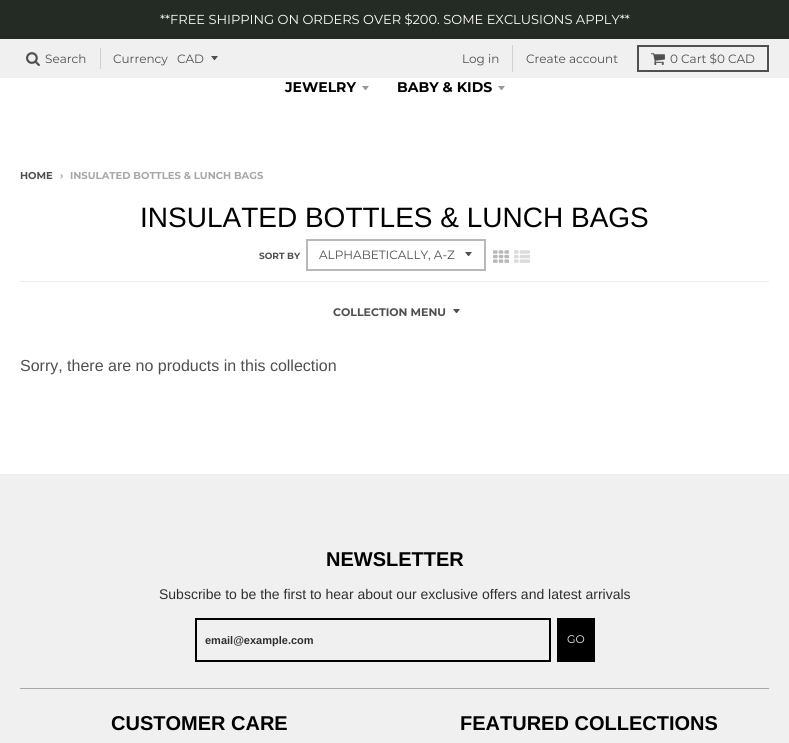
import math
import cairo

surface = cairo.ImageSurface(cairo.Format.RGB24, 789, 743)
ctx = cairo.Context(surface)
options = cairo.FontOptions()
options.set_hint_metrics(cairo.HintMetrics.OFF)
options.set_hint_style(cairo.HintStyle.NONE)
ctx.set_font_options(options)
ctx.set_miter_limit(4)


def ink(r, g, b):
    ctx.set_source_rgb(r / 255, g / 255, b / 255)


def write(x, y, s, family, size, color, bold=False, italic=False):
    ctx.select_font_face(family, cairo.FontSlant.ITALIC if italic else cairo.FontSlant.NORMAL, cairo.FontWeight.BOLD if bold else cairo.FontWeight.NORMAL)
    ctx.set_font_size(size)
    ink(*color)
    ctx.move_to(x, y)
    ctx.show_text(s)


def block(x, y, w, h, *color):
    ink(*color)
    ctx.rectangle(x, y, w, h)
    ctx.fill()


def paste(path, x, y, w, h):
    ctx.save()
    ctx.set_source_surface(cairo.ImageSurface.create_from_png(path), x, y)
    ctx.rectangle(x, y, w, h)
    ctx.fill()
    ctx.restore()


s1 = dict(family="Montserrat", size=13, color=(255, 255, 255))
s2 = dict(family="Montserrat", size=12, color=(79, 79, 79))
s3 = dict(family="Montserrat", size=14, color=(0, 0, 0), bold=True)
s4 = dict(family="Montserrat", size=10, color=(79, 79, 79), bold=True)
s5 = dict(family="Montserrat", size=10, color=(167, 167, 167), bold=True)
s6 = dict(family="Liberation Sans", size=28, color=(0, 0, 0))
s7 = dict(family="Montserrat", size=9, color=(79, 79, 79), bold=True)
s8 = dict(family="Montserrat", size=11, color=(79, 79, 79), bold=True)
s9 = dict(family="Liberation Sans", size=16, color=(79, 79, 79))
s10 = dict(family="Liberation Sans", size=20, color=(0, 0, 0), bold=True)
s11 = dict(family="Liberation Sans", size=14, color=(47, 47, 47))
s12 = dict(family="Liberation Sans", size=11, color=(47, 47, 47), bold=True)
s13 = dict(family="Montserrat", size=11, color=(240, 240, 240))

ink(255, 255, 255)
ctx.paint()
block(0, 0, 789, 39, 35, 43, 36)
write(160, 24, "**FREE SHIPPING ON ORDERS OVER $200. SOME EXCLUSIONS APPLY**", **s1)
block(0, 39, 789, 39, 240, 240, 240)
paste("pic1.png", 26, 52, 14, 14)
write(45, 63, "Search", **s2)
block(100, 48, 1, 21, 208, 208, 208)
write(113, 63, "Currency", **s2)
ink(80, 80, 80)
ctx.new_path()
ctx.move_to(211, 56)
ctx.curve_to(215.5, 61.5, 213.5, 61.5, 218, 56)
ctx.close_path()
ctx.fill()
write(177, 63, "CAD", **s2)
block(512, 45, 1, 27, 208, 208, 208)
write(462, 63, "Log in", **s2)
write(526, 63, "Create account", **s2)
ctx.rectangle(638, 46, 130, 25)
ink(80, 80, 80)
ctx.stroke()
paste("pic2.png", 651, 53, 14, 12)
write(670, 63, "0 Cart $0 CAD", **s2)
write(285, 92, "JEWELRY", **s3)
ink(152, 153, 153)
ctx.new_path()
ctx.move_to(362, 86)
ctx.curve_to(366.5, 91.5, 364.5, 91.5, 369, 86)
ctx.close_path()
ctx.fill()
write(397, 92, "BABY & KIDS", **s3)
ink(152, 153, 153)
ctx.new_path()
ctx.move_to(498, 86)
ctx.curve_to(502.5, 91.5, 500.5, 91.5, 505, 86)
ctx.close_path()
ctx.fill()
block(0, 474, 789, 1, 237, 237, 237)
write(20, 179, "HOME", **s4)
write(60, 179, "›", **s5)
write(70, 179, "INSULATED BOTTLES & LUNCH BAGS", **s5)
block(20, 281, 749, 1, 237, 237, 237)
write(140, 227, "INSULATED BOTTLES & LUNCH BAGS", **s6)
write(259, 259, "SORT BY", **s7)
ctx.new_path()
ctx.move_to(465, 252)
ctx.curve_to(469.5, 257.5, 467.5, 257.5, 472, 252)
ctx.close_path()
ctx.fill()
ctx.rectangle(307, 240, 178, 30)
ink(184, 184, 184)
ctx.stroke()
write(319, 259, "ALPHABETICALLY, A-Z", **s2)
paste("pic3.png", 493, 250, 16, 13)
paste("pic4.png", 514, 250, 16, 13)
write(333, 316, "COLLECTION MENU", **s8)
ctx.new_path()
ctx.move_to(453, 309)
ctx.curve_to(457.5, 314.5, 455.5, 314.5, 460, 309)
ctx.close_path()
ctx.fill()
write(20, 371, "Sorry, there are no products in this collection", **s9)
block(0, 475, 789, 268, 240, 240, 240)
write(326, 566, "NEWSLETTER", **s10)
write(159, 599, "Subscribe to be the first to hear about our exclusive offers and latest arrivals", **s11)
block(20, 688, 749, 1, 168, 168, 168)
ctx.rectangle(196, 619, 354, 42)
ink(0, 0, 0)
ctx.stroke()
write(205, 644, "email@example.com", **s12)
block(557, 618, 38, 44, 0, 0, 0)
write(567, 643, "GO", **s13)
write(111, 730, "CUSTOMER CARE", **s10)
write(460, 730, "FEATURED COLLECTIONS", **s10)
surface.write_to_png("screenshot.png")
